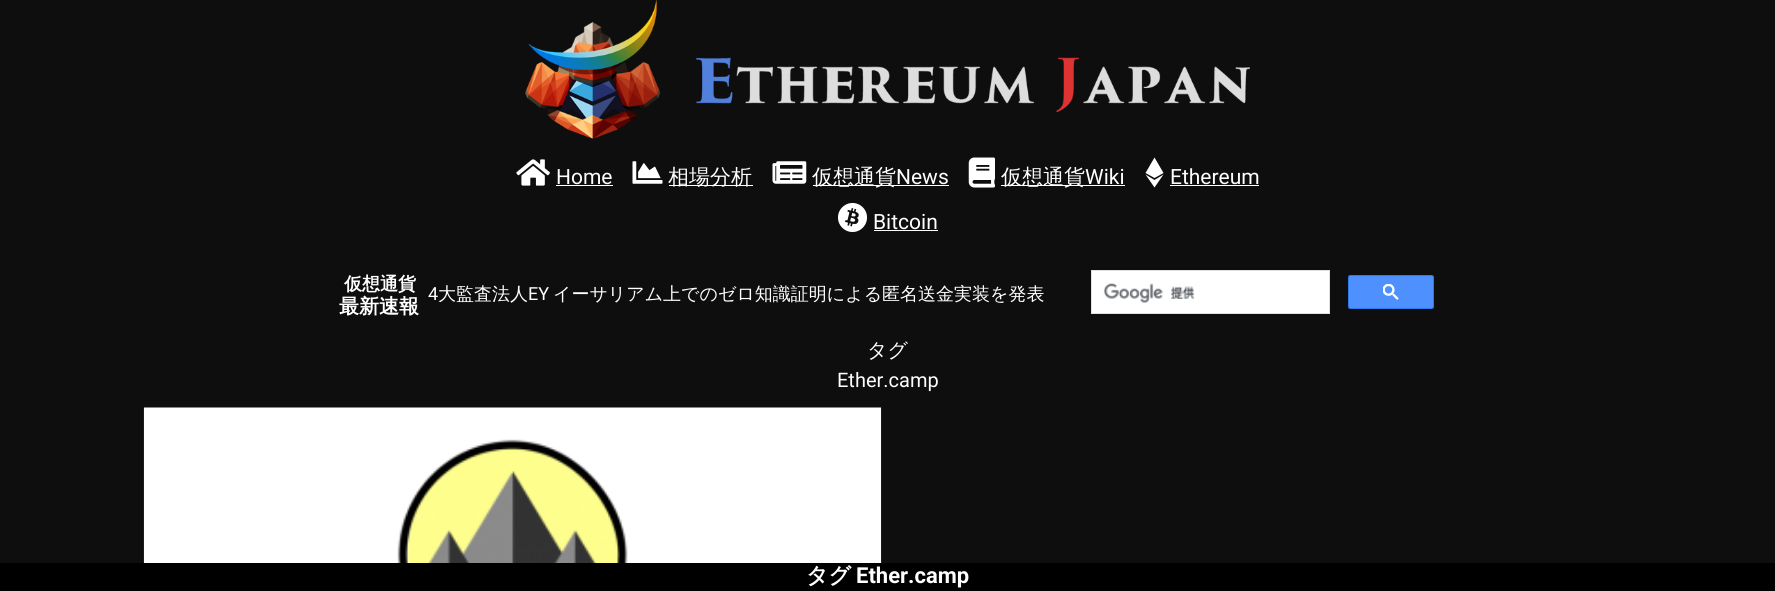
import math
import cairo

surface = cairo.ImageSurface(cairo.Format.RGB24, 1775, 591)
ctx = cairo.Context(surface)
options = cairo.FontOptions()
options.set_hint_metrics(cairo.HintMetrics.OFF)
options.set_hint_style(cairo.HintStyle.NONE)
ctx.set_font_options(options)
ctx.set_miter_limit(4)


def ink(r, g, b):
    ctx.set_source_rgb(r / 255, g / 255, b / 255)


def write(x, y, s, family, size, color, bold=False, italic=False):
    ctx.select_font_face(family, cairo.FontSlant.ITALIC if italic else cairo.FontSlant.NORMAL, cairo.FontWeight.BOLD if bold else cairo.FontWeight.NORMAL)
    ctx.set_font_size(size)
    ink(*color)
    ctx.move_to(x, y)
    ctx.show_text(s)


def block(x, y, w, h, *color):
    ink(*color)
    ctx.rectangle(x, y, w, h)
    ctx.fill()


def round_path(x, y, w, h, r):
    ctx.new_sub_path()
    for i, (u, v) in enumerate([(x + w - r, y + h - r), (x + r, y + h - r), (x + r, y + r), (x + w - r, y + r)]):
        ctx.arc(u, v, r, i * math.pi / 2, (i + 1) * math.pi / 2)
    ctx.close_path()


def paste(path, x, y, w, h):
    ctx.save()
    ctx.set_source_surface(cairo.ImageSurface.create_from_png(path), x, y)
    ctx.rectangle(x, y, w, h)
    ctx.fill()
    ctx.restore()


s1 = dict(family="Roboto", size=21, color=(255, 255, 255))
s2 = dict(family="WenQuanYi Zen Hei Medium", size=21, color=(255, 255, 255))
s3 = dict(family="WenQuanYi Zen Hei", size=18, color=(255, 255, 255), bold=True)
s4 = dict(family="WenQuanYi Zen Hei", size=20, color=(255, 255, 255), bold=True)
s5 = dict(family="Roboto", size=18, color=(255, 255, 255))
s6 = dict(family="WenQuanYi Zen Hei Medium", size=18, color=(255, 255, 255))
s7 = dict(family="WenQuanYi Zen Hei Medium", size=20, color=(255, 255, 255))
s8 = dict(family="Roboto", size=20, color=(255, 255, 255))
s9 = dict(family="WenQuanYi Zen Hei", size=22, color=(255, 255, 255), bold=True)
s10 = dict(family="Roboto", size=22, color=(255, 255, 255), bold=True)

ink(14, 14, 14)
ctx.paint()
paste("pic1.png", 525, 0, 725, 139)
paste("pic2.png", 516, 159, 34, 27)
write(556, 184, "Home", **s1)
block(556, 185, 57, 1, 255, 255, 255)
paste("pic3.png", 632, 161, 31, 23)
block(669, 185, 84, 1, 255, 255, 255)
write(668, 184, "相場分析", **s2)
paste("pic4.png", 772, 161, 35, 23)
block(813, 185, 136, 1, 255, 255, 255)
write(812, 184, "仮想通貨", **s2)
write(896, 184, "News", **s1)
paste("pic5.png", 968, 157, 27, 31)
block(1001, 185, 124, 1, 255, 255, 255)
write(1001, 184, "仮想通貨", **s2)
write(1085, 184, "Wiki", **s1)
ctx.new_path()
ctx.move_to(1163.5, 173)
ctx.line_to(1154.5, 178)
ctx.line_to(1145.5, 173)
ctx.line_to(1154.5, 157.5)
ctx.close_path()
ctx.move_to(1154.5, 180)
ctx.line_to(1145.5, 174.5)
ctx.line_to(1154.5, 187.5)
ctx.line_to(1163.5, 174.5)
ctx.close_path()
ctx.fill()
write(1170, 184, "Ethereum", **s1)
block(1170, 185, 89, 1, 255, 255, 255)
paste("pic6.png", 838, 203, 29, 29)
write(873, 229, "Bitcoin", **s1)
block(874, 230, 64, 1, 255, 255, 255)
write(344, 290, "仮想通貨", **s3)
write(339, 313, "最新速報", **s4)
write(428, 300, "4", **s5)
write(438, 300, "大監査法人", **s6)
write(528, 300, "EY", **s5)
write(553, 300, "イーサリアム上でのゼロ知識証明による匿名送金実装を発表", **s6)
ctx.rectangle(1091.5, 270.5, 238, 43)
ctx.fill_preserve()
ink(223, 225, 229)
ctx.set_line_width(1)
ctx.stroke()
paste("pic7.png", 1103, 283, 92, 20)
ink(77, 144, 254)
round_path(1348.5, 275.5, 85, 33, 2)
ctx.fill_preserve()
ink(48, 121, 237)
ctx.stroke()
paste("pic8.png", 1383, 284, 16, 16)
write(867, 357, "タグ", **s7)
write(837, 387, "Ether.camp", **s8)
paste("pic9.png", 143, 407, 739, 156)
block(0, 563, 1775, 28, 0, 0, 0)
write(806, 583, "タグ", **s9)
write(856, 583, "Ether.camp", **s10)
surface.write_to_png("screenshot.png")
